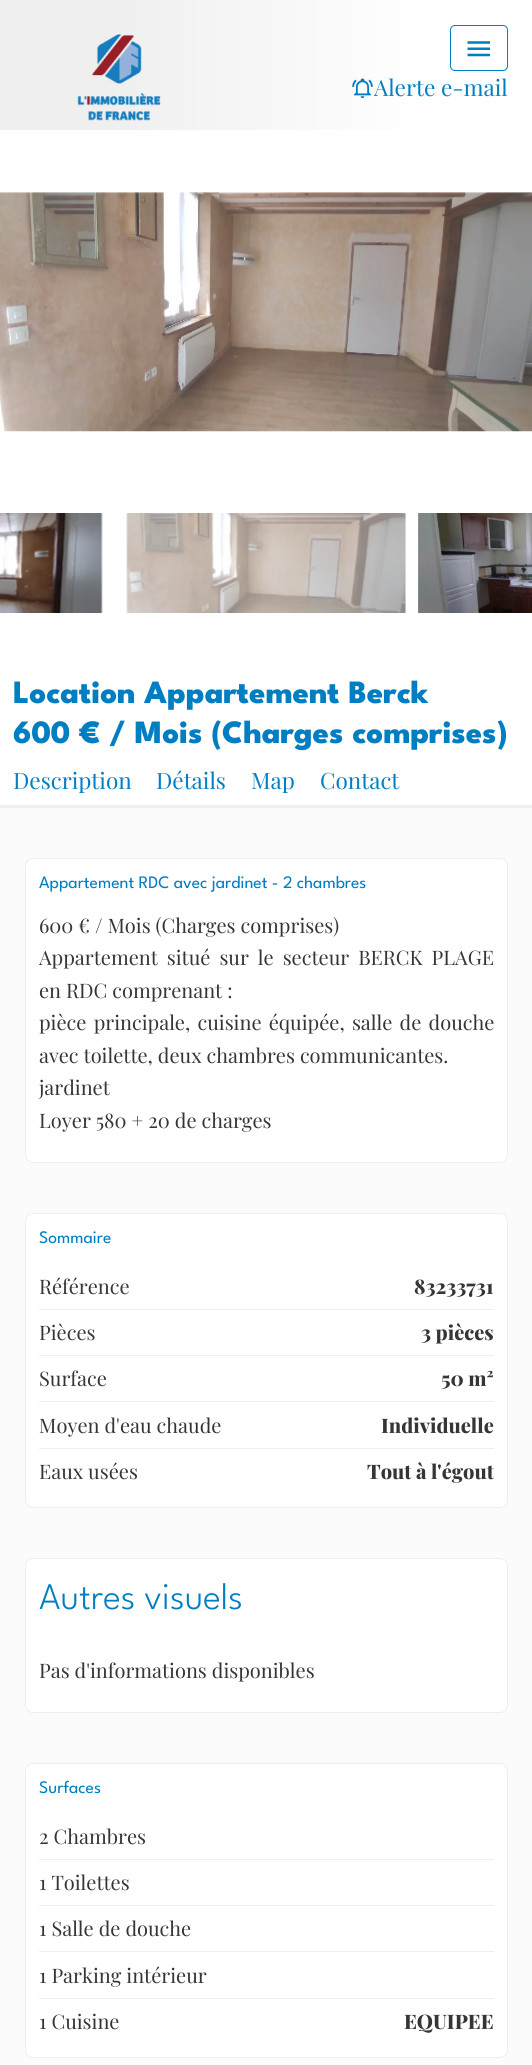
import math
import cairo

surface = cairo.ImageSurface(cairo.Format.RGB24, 532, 2065)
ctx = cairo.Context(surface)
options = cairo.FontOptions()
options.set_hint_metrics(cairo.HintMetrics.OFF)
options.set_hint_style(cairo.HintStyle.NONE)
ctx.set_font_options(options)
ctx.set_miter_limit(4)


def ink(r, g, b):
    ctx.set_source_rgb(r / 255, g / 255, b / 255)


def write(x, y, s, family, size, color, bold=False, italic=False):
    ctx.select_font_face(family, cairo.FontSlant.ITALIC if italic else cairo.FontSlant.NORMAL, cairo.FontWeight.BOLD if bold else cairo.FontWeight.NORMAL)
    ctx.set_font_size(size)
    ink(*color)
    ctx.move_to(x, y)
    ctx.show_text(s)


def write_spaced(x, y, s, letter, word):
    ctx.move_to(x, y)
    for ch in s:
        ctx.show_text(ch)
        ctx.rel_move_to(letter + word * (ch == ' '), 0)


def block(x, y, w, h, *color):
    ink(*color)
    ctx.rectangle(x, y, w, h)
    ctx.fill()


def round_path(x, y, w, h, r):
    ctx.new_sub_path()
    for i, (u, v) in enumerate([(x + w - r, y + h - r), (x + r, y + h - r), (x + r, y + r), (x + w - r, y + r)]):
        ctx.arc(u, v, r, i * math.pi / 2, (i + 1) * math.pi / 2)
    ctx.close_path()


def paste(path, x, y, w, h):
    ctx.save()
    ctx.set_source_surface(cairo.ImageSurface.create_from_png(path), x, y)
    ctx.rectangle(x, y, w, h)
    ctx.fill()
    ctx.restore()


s1 = dict(family="Playfair Display", size=22.5, color=(0, 126, 194))
s2 = dict(family="League Spartan ExtraBold", size=32.5, color=(0, 126, 194))
s3 = dict(family="League Spartan", size=17.5, color=(0, 126, 194))
s4 = dict(family="Playfair Display", size=20, color=(53, 53, 53))
s5 = dict(family="Playfair Display ExtraBold", size=20, color=(53, 53, 53))
s6 = dict(family="League Spartan Light", size=37.5, color=(0, 126, 194))

ink(251, 251, 251)
ctx.paint()
gradient = cairo.LinearGradient(0, 65, 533, 65)
gradient.add_color_stop_rgba(0.2, 0.941, 0.937, 0.937, 1)
gradient.add_color_stop_rgba(0.8, 1, 1, 1, 1)
ctx.set_source(gradient)
ctx.rectangle(0, 0, 532, 130)
ctx.fill()
paste("pic1.png", 77, 34, 84, 87)
round_path(450.5, 25.5, 57, 45, 4.5)
ink(0, 126, 194)
ctx.set_line_width(1)
ctx.stroke()
paste("pic2.png", 467, 41, 23, 16)
paste("pic3.png", 352, 78, 21, 21)
write(374, 96, "Alerte e-mail", **s1)
block(0, 130, 532, 675, 255, 255, 255)
block(0, 805, 532, 3, 238, 238, 238)
paste("pic4.png", 0, 192, 532, 240)
paste("pic5.png", 0, 513, 103, 100)
paste("pic6.png", 126, 513, 280, 100)
paste("pic7.png", 418, 513, 114, 100)
write(13, 703, "Location Appartement Berck", **s2)
write(13, 743, "600 € / Mois (Charges comprises)", **s2)
write(13, 789, "Description", **s1)
write(156, 789, "Détails", **s1)
write(251, 789, "Map", **s1)
write(320, 789, "Contact", **s1)
ink(255, 255, 255)
round_path(25.5, 858.5, 482, 304, 7.5)
ctx.fill_preserve()
ink(238, 238, 238)
ctx.stroke()
write(39, 888, "Appartement RDC avec jardinet - 2 chambres", **s3)
write(39, 933, "600 € / Mois (Charges comprises)", **s4)
write_spaced(39, 965, "Appartement situé sur le secteur BERCK PLAGE", 0, 4)
write(39, 998, "en RDC comprenant :", **s4)
write_spaced(39, 1030, "pièce principale, cuisine équipée, salle de douche", 0, 2.25)
write(39, 1063, "avec toilette, deux chambres communicantes.", **s4)
write(39, 1095, "jardinet", **s4)
write(39, 1128, "Loyer 580 + 20 de charges", **s4)
ink(255, 255, 255)
round_path(25.5, 1213.5, 482, 294, 7.5)
ctx.fill_preserve()
ink(238, 238, 238)
ctx.stroke()
write(39, 1243, "Sommaire", **s3)
block(39, 1309, 455, 1, 238, 238, 238)
write(39, 1294, "Référence", **s4)
write(414, 1294, "83233731", **s5)
block(39, 1355, 455, 1, 238, 238, 238)
write(39, 1340, "Pièces", **s4)
write(421, 1340, "3 pièces", **s5)
block(39, 1401, 455, 1, 238, 238, 238)
write(39, 1386, "Surface", **s4)
write(441, 1386, "50 m²", **s5)
block(39, 1448, 455, 1, 238, 238, 238)
write(39, 1433, "Moyen d'eau chaude", **s4)
write(381, 1433, "Individuelle", **s5)
write(39, 1479, "Eaux usées", **s4)
write(367, 1479, "Tout à l'égout", **s5)
ink(255, 255, 255)
round_path(25.5, 1558.5, 482, 154, 7.5)
ctx.fill_preserve()
ink(238, 238, 238)
ctx.stroke()
write(39, 1609, "Autres visuels", **s6)
write(39, 1678, "Pas d'informations disponibles", **s4)
ink(255, 255, 255)
round_path(25.5, 1763.5, 482, 294, 7.5)
ctx.fill_preserve()
ink(238, 238, 238)
ctx.stroke()
write(39, 1793, "Surfaces", **s3)
block(39, 1859, 455, 1, 238, 238, 238)
write(39, 1844, "2 Chambres", **s4)
block(39, 1905, 455, 1, 238, 238, 238)
write(39, 1890, "1 Toilettes", **s4)
block(39, 1951, 455, 1, 238, 238, 238)
write(39, 1936, "1 Salle de douche", **s4)
block(39, 1998, 455, 1, 238, 238, 238)
write(39, 1983, "1 Parking intérieur", **s4)
write(39, 2029, "1 Cuisine", **s4)
write(404, 2029, "EQUIPEE", **s5)
surface.write_to_png("screenshot.png")
